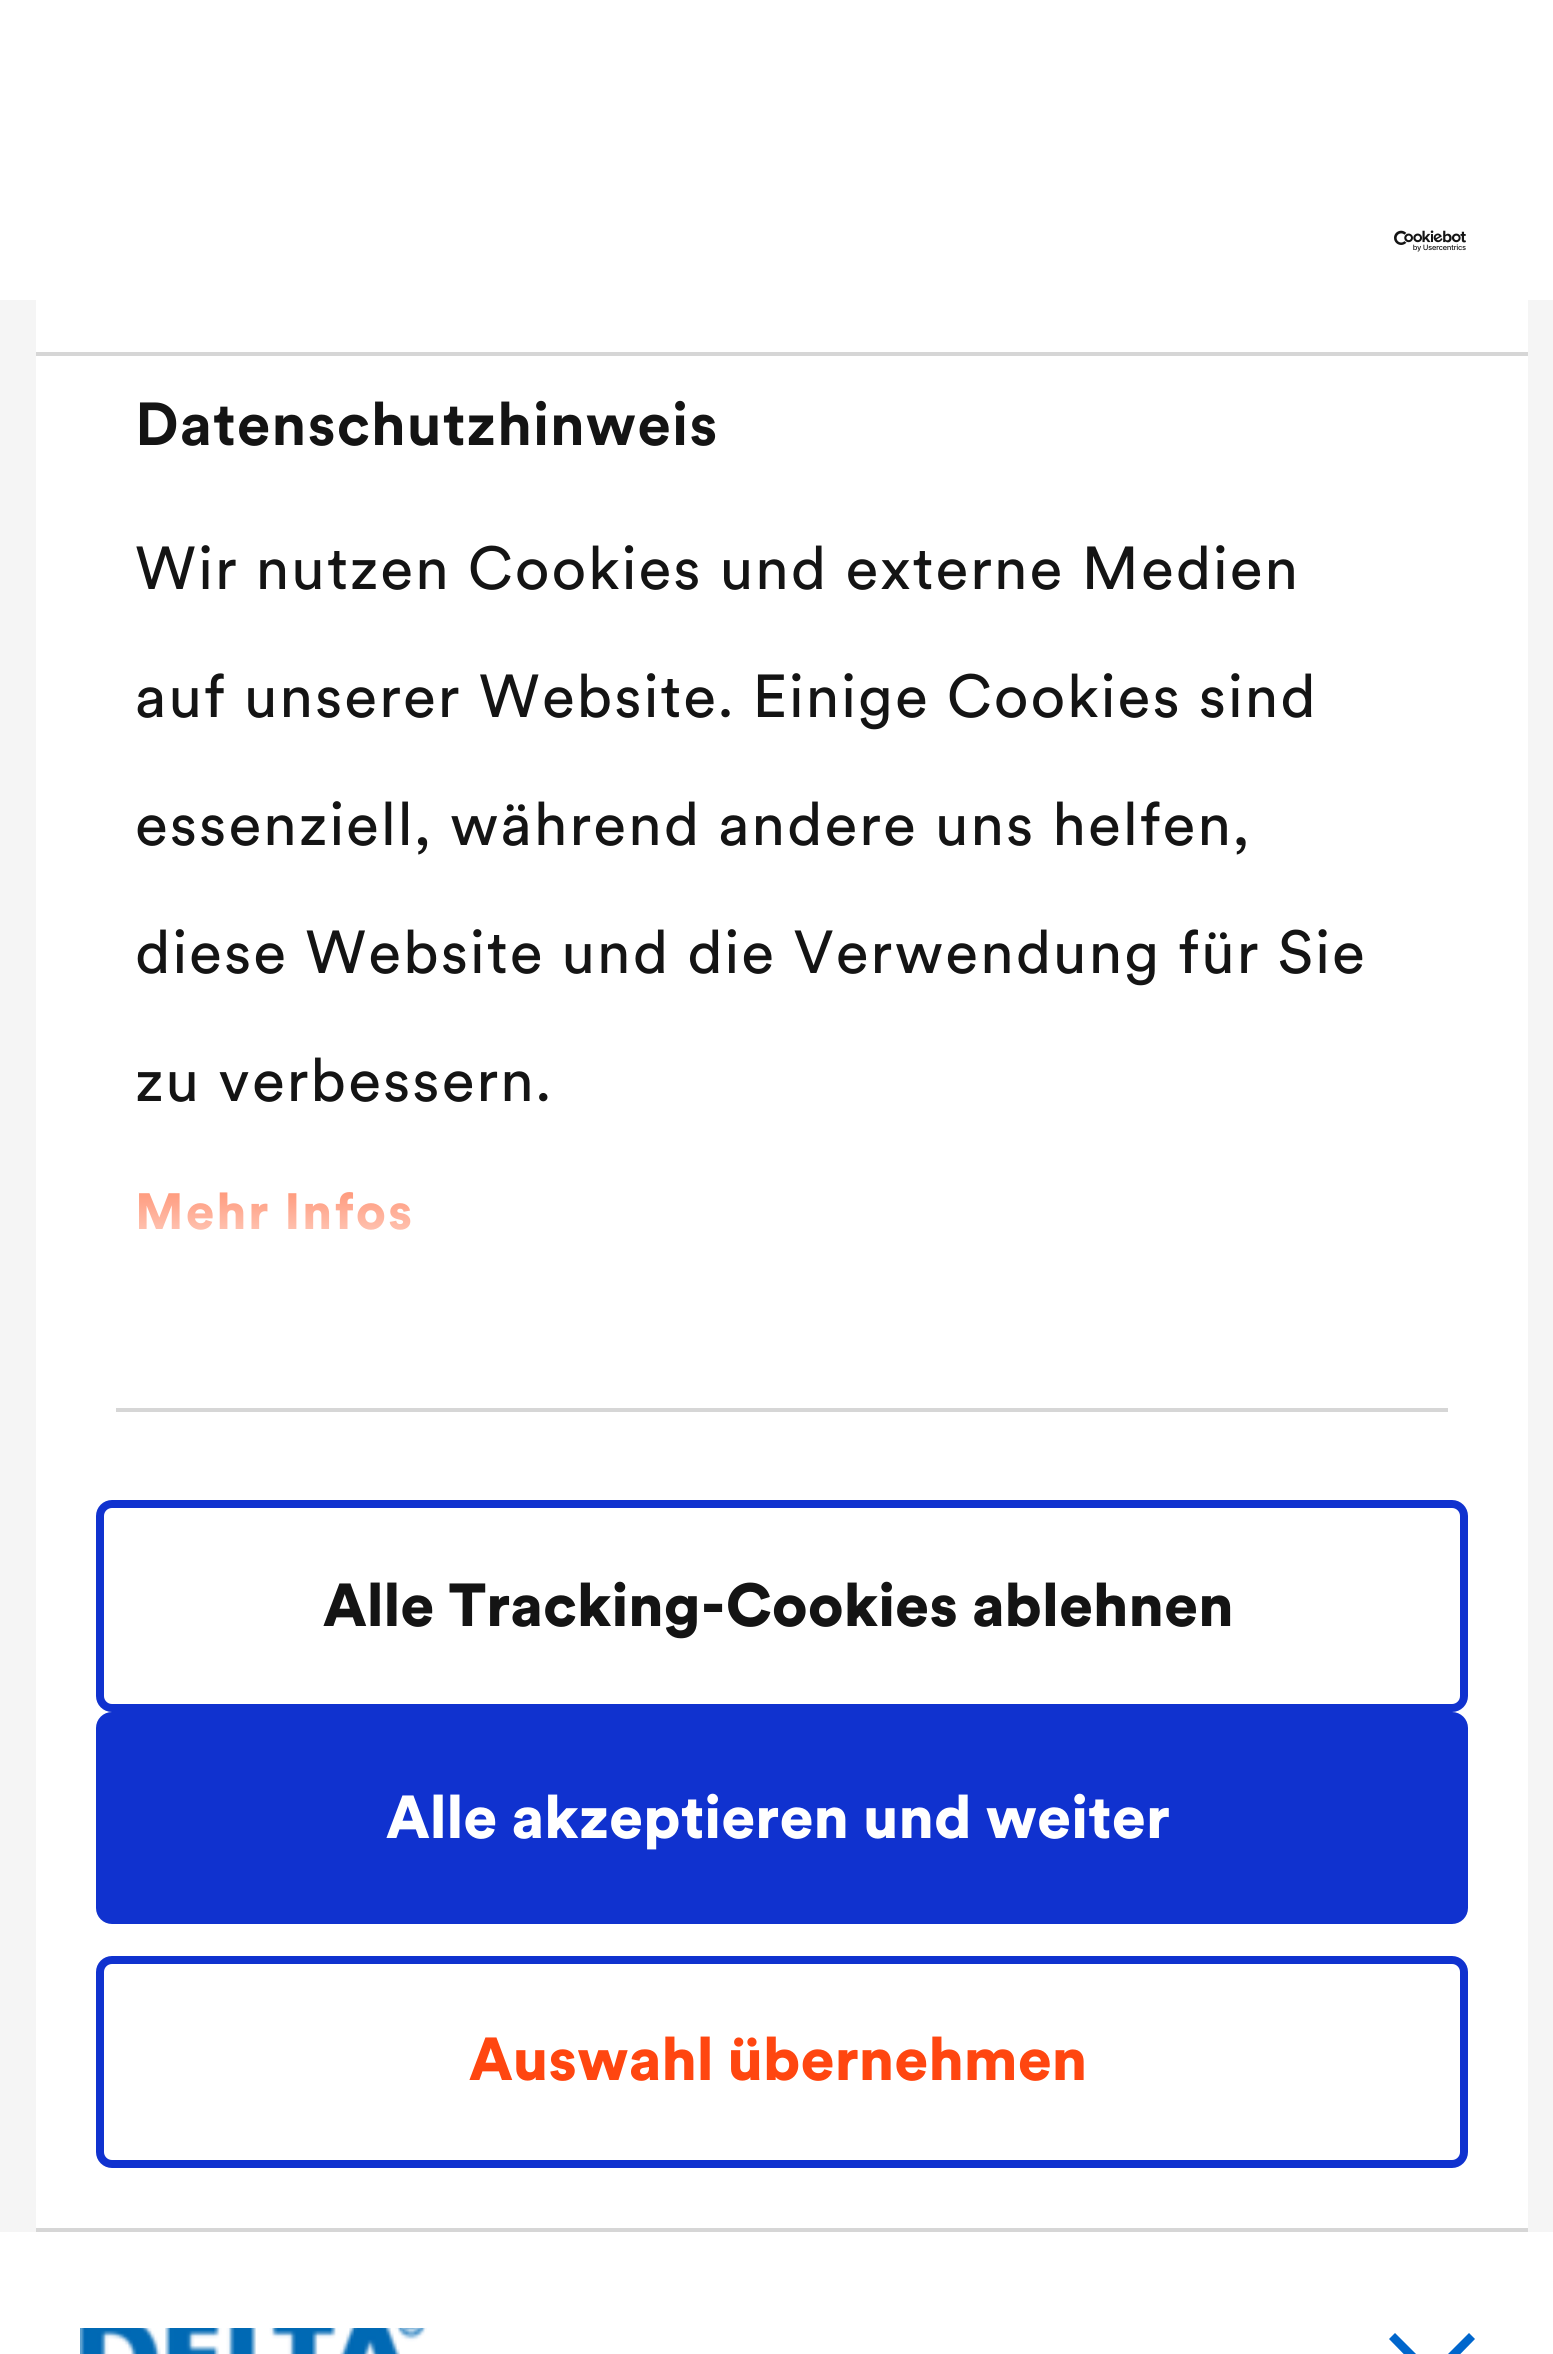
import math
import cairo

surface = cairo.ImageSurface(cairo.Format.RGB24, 1553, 2354)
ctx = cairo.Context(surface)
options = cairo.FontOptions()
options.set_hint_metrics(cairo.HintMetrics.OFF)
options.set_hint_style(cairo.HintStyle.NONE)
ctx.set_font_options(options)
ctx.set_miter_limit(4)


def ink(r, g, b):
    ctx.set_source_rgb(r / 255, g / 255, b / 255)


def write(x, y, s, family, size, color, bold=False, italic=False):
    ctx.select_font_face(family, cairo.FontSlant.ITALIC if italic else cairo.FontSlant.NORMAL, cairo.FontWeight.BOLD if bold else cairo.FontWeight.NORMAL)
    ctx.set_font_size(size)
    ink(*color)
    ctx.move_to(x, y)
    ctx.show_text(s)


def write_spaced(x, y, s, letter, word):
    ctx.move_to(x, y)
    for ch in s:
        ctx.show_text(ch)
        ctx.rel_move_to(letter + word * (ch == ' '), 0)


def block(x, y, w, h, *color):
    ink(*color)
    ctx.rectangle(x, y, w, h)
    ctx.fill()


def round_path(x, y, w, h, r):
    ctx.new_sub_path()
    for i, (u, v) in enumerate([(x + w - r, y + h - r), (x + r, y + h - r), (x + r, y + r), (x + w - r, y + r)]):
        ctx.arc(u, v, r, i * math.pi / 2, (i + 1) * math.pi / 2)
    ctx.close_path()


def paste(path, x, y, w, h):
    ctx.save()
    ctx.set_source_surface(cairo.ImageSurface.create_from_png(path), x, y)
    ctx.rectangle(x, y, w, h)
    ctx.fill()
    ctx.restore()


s1 = dict(family="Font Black", size=60, color=(20, 20, 20))
s2 = dict(family="Font Black", size=60, color=(255, 255, 255))
s3 = dict(family="Font Black", size=60, color=(255, 70, 16))

ink(255, 255, 255)
ctx.paint()
block(0, 300, 1553, 1932, 245, 245, 245)
ink(255, 255, 255)
round_path(36, 36, 1492, 2292, 32)
ctx.fill()
block(36, 352, 1492, 4, 214, 214, 214)
paste("pic1.png", 1394, 230, 72, 22)
block(116, 1408, 1332, 4, 214, 214, 214)
ctx.select_font_face("Font", cairo.FontSlant.NORMAL, cairo.FontWeight.BOLD)
ctx.set_font_size(60)
ink(20, 20, 20)
write_spaced(135, 445, "Datenschutzhinweis", 1, 0)
ctx.select_font_face("Font")
write_spaced(135, 589, "Wir nutzen Cookies und externe Medien", 2, 0)
write_spaced(135, 717, "auf unserer Website. Einige Cookies sind", 2, 0)
write_spaced(135, 845, "essenziell, während andere uns helfen,", 2, 0)
write_spaced(135, 973, "diese Website und die Verwendung für Sie", 2, 0)
write_spaced(135, 1101, "zu verbessern.", 2, 0)
ctx.select_font_face("Font Black")
ctx.set_font_size(50.5)
ink(255, 70, 16)
write_spaced(135, 1229, "Mehr Infos", 2, 0)
gradient = cairo.LinearGradient(754, 1406, 754, 1106)
gradient.add_color_stop_rgba(0, 1, 1, 1, 1)
gradient.add_color_stop_rgba(0.5, 1, 1, 1, 0.8)
gradient.add_color_stop_rgba(1, 1, 1, 1, 0)
ctx.set_source(gradient)
ctx.rectangle(138, 1191, 273, 39)
ctx.fill()
block(36, 2228, 1492, 4, 214, 214, 214)
round_path(100, 1504, 1364, 204, 12)
ink(16, 50, 207)
ctx.set_line_width(8)
ctx.stroke()
write(323, 1626, "Alle Tracking-Cookies ablehnen", **s1)
ink(16, 50, 207)
round_path(100, 1716, 1364, 204, 12)
ctx.fill_preserve()
ctx.stroke()
write(386, 1838, "Alle akzeptieren und weiter", **s2)
round_path(100, 1960, 1364, 204, 12)
ink(16, 50, 207)
ctx.stroke()
write(469, 2080, "Auswahl übernehmen", **s3)
paste("pic2.png", 80, 2328, 347, 26)
ink(0, 102, 204)
ctx.new_path()
ctx.move_to(1432, 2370)
ctx.line_to(1469, 2333)
ctx.line_to(1475, 2339)
ctx.line_to(1432, 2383)
ctx.line_to(1389, 2339)
ctx.line_to(1395, 2333)
ctx.close_path()
ctx.fill()
surface.write_to_png("screenshot.png")
